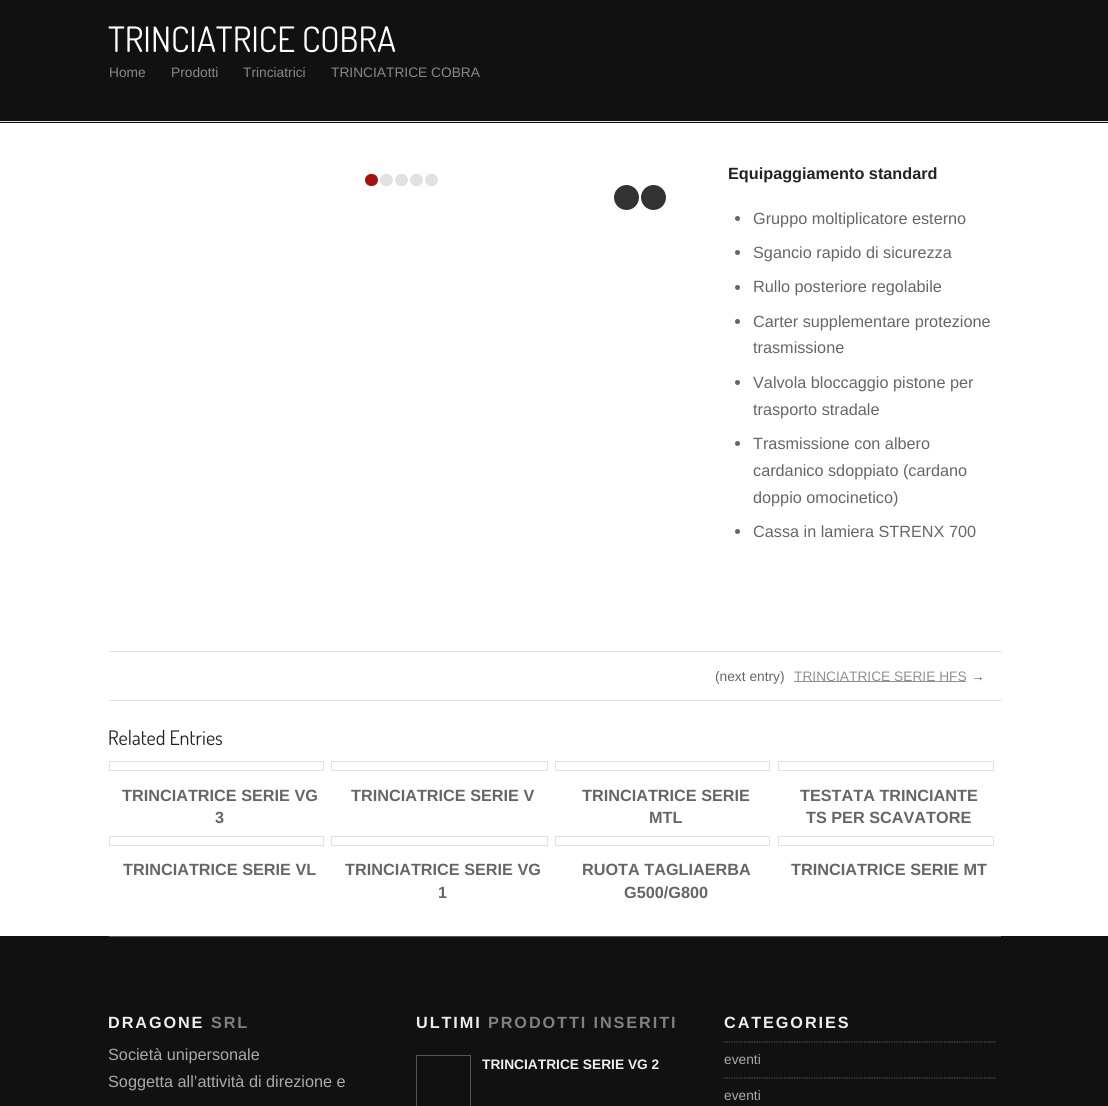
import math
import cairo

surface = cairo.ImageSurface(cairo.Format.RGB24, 1108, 1106)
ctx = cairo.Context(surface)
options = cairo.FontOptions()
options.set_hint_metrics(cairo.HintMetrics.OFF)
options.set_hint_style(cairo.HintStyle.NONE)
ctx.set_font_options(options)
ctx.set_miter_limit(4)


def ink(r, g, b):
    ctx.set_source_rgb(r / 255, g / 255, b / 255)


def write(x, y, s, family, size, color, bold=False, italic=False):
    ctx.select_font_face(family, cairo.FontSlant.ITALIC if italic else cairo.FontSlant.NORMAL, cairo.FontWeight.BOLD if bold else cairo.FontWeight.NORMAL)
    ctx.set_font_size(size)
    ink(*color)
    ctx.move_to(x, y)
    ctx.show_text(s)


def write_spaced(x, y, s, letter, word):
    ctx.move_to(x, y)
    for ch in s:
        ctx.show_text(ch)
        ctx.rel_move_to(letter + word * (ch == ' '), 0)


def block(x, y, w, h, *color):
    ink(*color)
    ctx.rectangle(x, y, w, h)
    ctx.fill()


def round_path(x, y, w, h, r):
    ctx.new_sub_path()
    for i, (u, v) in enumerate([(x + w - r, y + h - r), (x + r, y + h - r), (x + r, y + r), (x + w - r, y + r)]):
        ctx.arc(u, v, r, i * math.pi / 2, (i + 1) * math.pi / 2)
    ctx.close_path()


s1 = dict(family="Dosis", size=35, color=(255, 255, 255))
s2 = dict(family="Liberation Sans", size=13.75, color=(136, 136, 136))
s3 = dict(family="Liberation Sans", size=16.25, color=(34, 34, 34), bold=True)
s4 = dict(family="Liberation Sans", size=16.25, color=(102, 102, 102))
s5 = dict(family="Liberation Sans", size=13.75, color=(102, 102, 102))
s6 = dict(family="Liberation Sans", size=13.75, color=(145, 145, 145))
s7 = dict(family="Dosis", size=20, color=(34, 34, 34))
s8 = dict(family="Liberation Sans", size=16.25, color=(102, 102, 102), bold=True)
s9 = dict(family="Liberation Sans", size=16.25, color=(170, 170, 170))
s10 = dict(family="Liberation Sans", size=13.75, color=(238, 238, 238), bold=True)
s11 = dict(family="Liberation Sans", size=13.75, color=(170, 170, 170))

ink(255, 255, 255)
ctx.paint()
block(0, 0, 1108, 123, 17, 17, 17)
block(0, 121, 1108, 1, 225, 225, 225)
write(108, 52, "TRINCIATRICE COBRA", **s1)
write(109, 77, "Home", **s2)
write(171, 77, "Prodotti", **s2)
write(243, 77, "Trinciatrici", **s2)
write(331, 77, "TRINCIATRICE COBRA", **s2)
ink(168, 16, 16)
round_path(365, 174, 13, 12, 6)
ctx.fill()
ink(225, 225, 225)
round_path(380.5, 174.5, 12, 11, 5.5)
ctx.fill_preserve()
ctx.set_line_width(1)
ctx.stroke()
round_path(395.5, 174.5, 12, 11, 5.5)
ctx.fill_preserve()
ctx.stroke()
round_path(410.5, 174.5, 12, 11, 5.5)
ctx.fill_preserve()
ctx.stroke()
round_path(425.5, 174.5, 12, 11, 5.5)
ctx.fill_preserve()
ctx.stroke()
ink(51, 51, 51)
ctx.arc(626.5, 197.5, 12.5, 0, 2 * math.pi)
ctx.fill()
ctx.arc(653.5, 197.5, 12.5, 0, 2 * math.pi)
ctx.fill()
write(728, 179, "Equipaggiamento standard", **s3)
ink(102, 102, 102)
ctx.new_path()
ctx.arc(737.5, 218.5, 2.5, 0, 2 * math.pi)
ctx.fill()
write(753, 224, "Gruppo moltiplicatore esterno", **s4)
ctx.new_path()
ctx.arc(737.5, 252.5, 2.5, 0, 2 * math.pi)
ctx.fill()
write(753, 258, "Sgancio rapido di sicurezza", **s4)
ctx.new_path()
ctx.arc(737.5, 287.5, 2.5, 0, 2 * math.pi)
ctx.fill()
write(753, 292, "Rullo posteriore regolabile", **s4)
ctx.new_path()
ctx.arc(737.5, 321.5, 2.5, 0, 2 * math.pi)
ctx.fill()
write(753, 327, "Carter supplementare protezione", **s4)
write(753, 353, "trasmissione", **s4)
ctx.new_path()
ctx.arc(737.5, 382.5, 2.5, 0, 2 * math.pi)
ctx.fill()
write(753, 388, "Valvola bloccaggio pistone per", **s4)
write(753, 415, "trasporto stradale", **s4)
ctx.new_path()
ctx.arc(737.5, 443.5, 2.5, 0, 2 * math.pi)
ctx.fill()
write(753, 449, "Trasmissione con albero", **s4)
write(753, 476, "cardanico sdoppiato (cardano", **s4)
write(753, 503, "doppio omocinetico)", **s4)
ctx.new_path()
ctx.arc(737.5, 531.5, 2.5, 0, 2 * math.pi)
ctx.fill()
write(753, 537, "Cassa in lamiera STRENX 700", **s4)
block(109, 651, 892, 1, 225, 225, 225)
write(715, 681, "(next entry)", **s5)
block(794, 681, 172, 1, 145, 145, 145)
write(794, 681, "TRINCIATRICE SERIE HFS", **s6)
write(971, 681, "→", **s5)
block(109, 700, 892, 1, 225, 225, 225)
write(108, 745, "Related Entries", **s7)
ctx.rectangle(109.5, 761.5, 214, 9)
ink(225, 225, 225)
ctx.stroke()
write(122, 801, "TRINCIATRICE SERIE VG", **s8)
write(215, 823, "3", **s8)
ctx.rectangle(331.5, 761.5, 216, 9)
ink(225, 225, 225)
ctx.stroke()
write(351, 801, "TRINCIATRICE SERIE V", **s8)
ctx.rectangle(555.5, 761.5, 214, 9)
ink(225, 225, 225)
ctx.stroke()
write(582, 801, "TRINCIATRICE SERIE", **s8)
write(649, 823, "MTL", **s8)
ctx.rectangle(778.5, 761.5, 215, 9)
ink(225, 225, 225)
ctx.stroke()
write(800, 801, "TESTATA TRINCIANTE", **s8)
write(806, 823, "TS PER SCAVATORE", **s8)
ctx.rectangle(109.5, 836.5, 214, 9)
ink(225, 225, 225)
ctx.stroke()
write(123, 875, "TRINCIATRICE SERIE VL", **s8)
ctx.rectangle(331.5, 836.5, 216, 9)
ink(225, 225, 225)
ctx.stroke()
write(345, 875, "TRINCIATRICE SERIE VG", **s8)
write(438, 898, "1", **s8)
ctx.rectangle(555.5, 836.5, 214, 9)
ink(225, 225, 225)
ctx.stroke()
write(582, 875, "RUOTA TAGLIAERBA", **s8)
write(624, 898, "G500/G800", **s8)
ctx.rectangle(778.5, 836.5, 215, 9)
ink(225, 225, 225)
ctx.stroke()
write(791, 875, "TRINCIATRICE SERIE MT", **s8)
block(0, 936, 1108, 170, 17, 17, 17)
block(109, 936, 892, 1, 85, 85, 85)
ink(238, 238, 238)
write_spaced(108, 1028, "DRAGONE", 1.9, 0)
ink(128, 128, 128)
write_spaced(211, 1028, "SRL", 1.9, 0)
write(108, 1060, "Società unipersonale", **s9)
write(108, 1087, "Soggetta all’attività di direzione e", **s9)
ctx.select_font_face("Liberation Sans", cairo.FontSlant.NORMAL, cairo.FontWeight.BOLD)
ink(238, 238, 238)
write_spaced(416, 1028, "ULTIMI", 1.9, 0)
ink(128, 128, 128)
write_spaced(488, 1028, "PRODOTTI INSERITI", 1.9, 0)
ctx.rectangle(416.5, 1055.5, 54, 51)
ink(85, 85, 85)
ctx.stroke()
write(482, 1069, "TRINCIATRICE SERIE VG 2", **s10)
ctx.set_font_size(16.25)
write_spaced(724, 1028, "CATEGORIES", 1.9, 0)
ctx.new_path()
ctx.move_to(724, 1042)
ctx.line_to(996, 1042)
ink(85, 85, 85)
ctx.set_line_width(1.2)
ctx.set_dash([1.25, 1.25])
ctx.stroke()
ctx.new_path()
ctx.move_to(724, 1078)
ctx.line_to(996, 1078)
ctx.stroke()
write(724, 1064, "eventi", **s11)
write(724, 1100, "eventi", **s11)
surface.write_to_png("screenshot.png")
